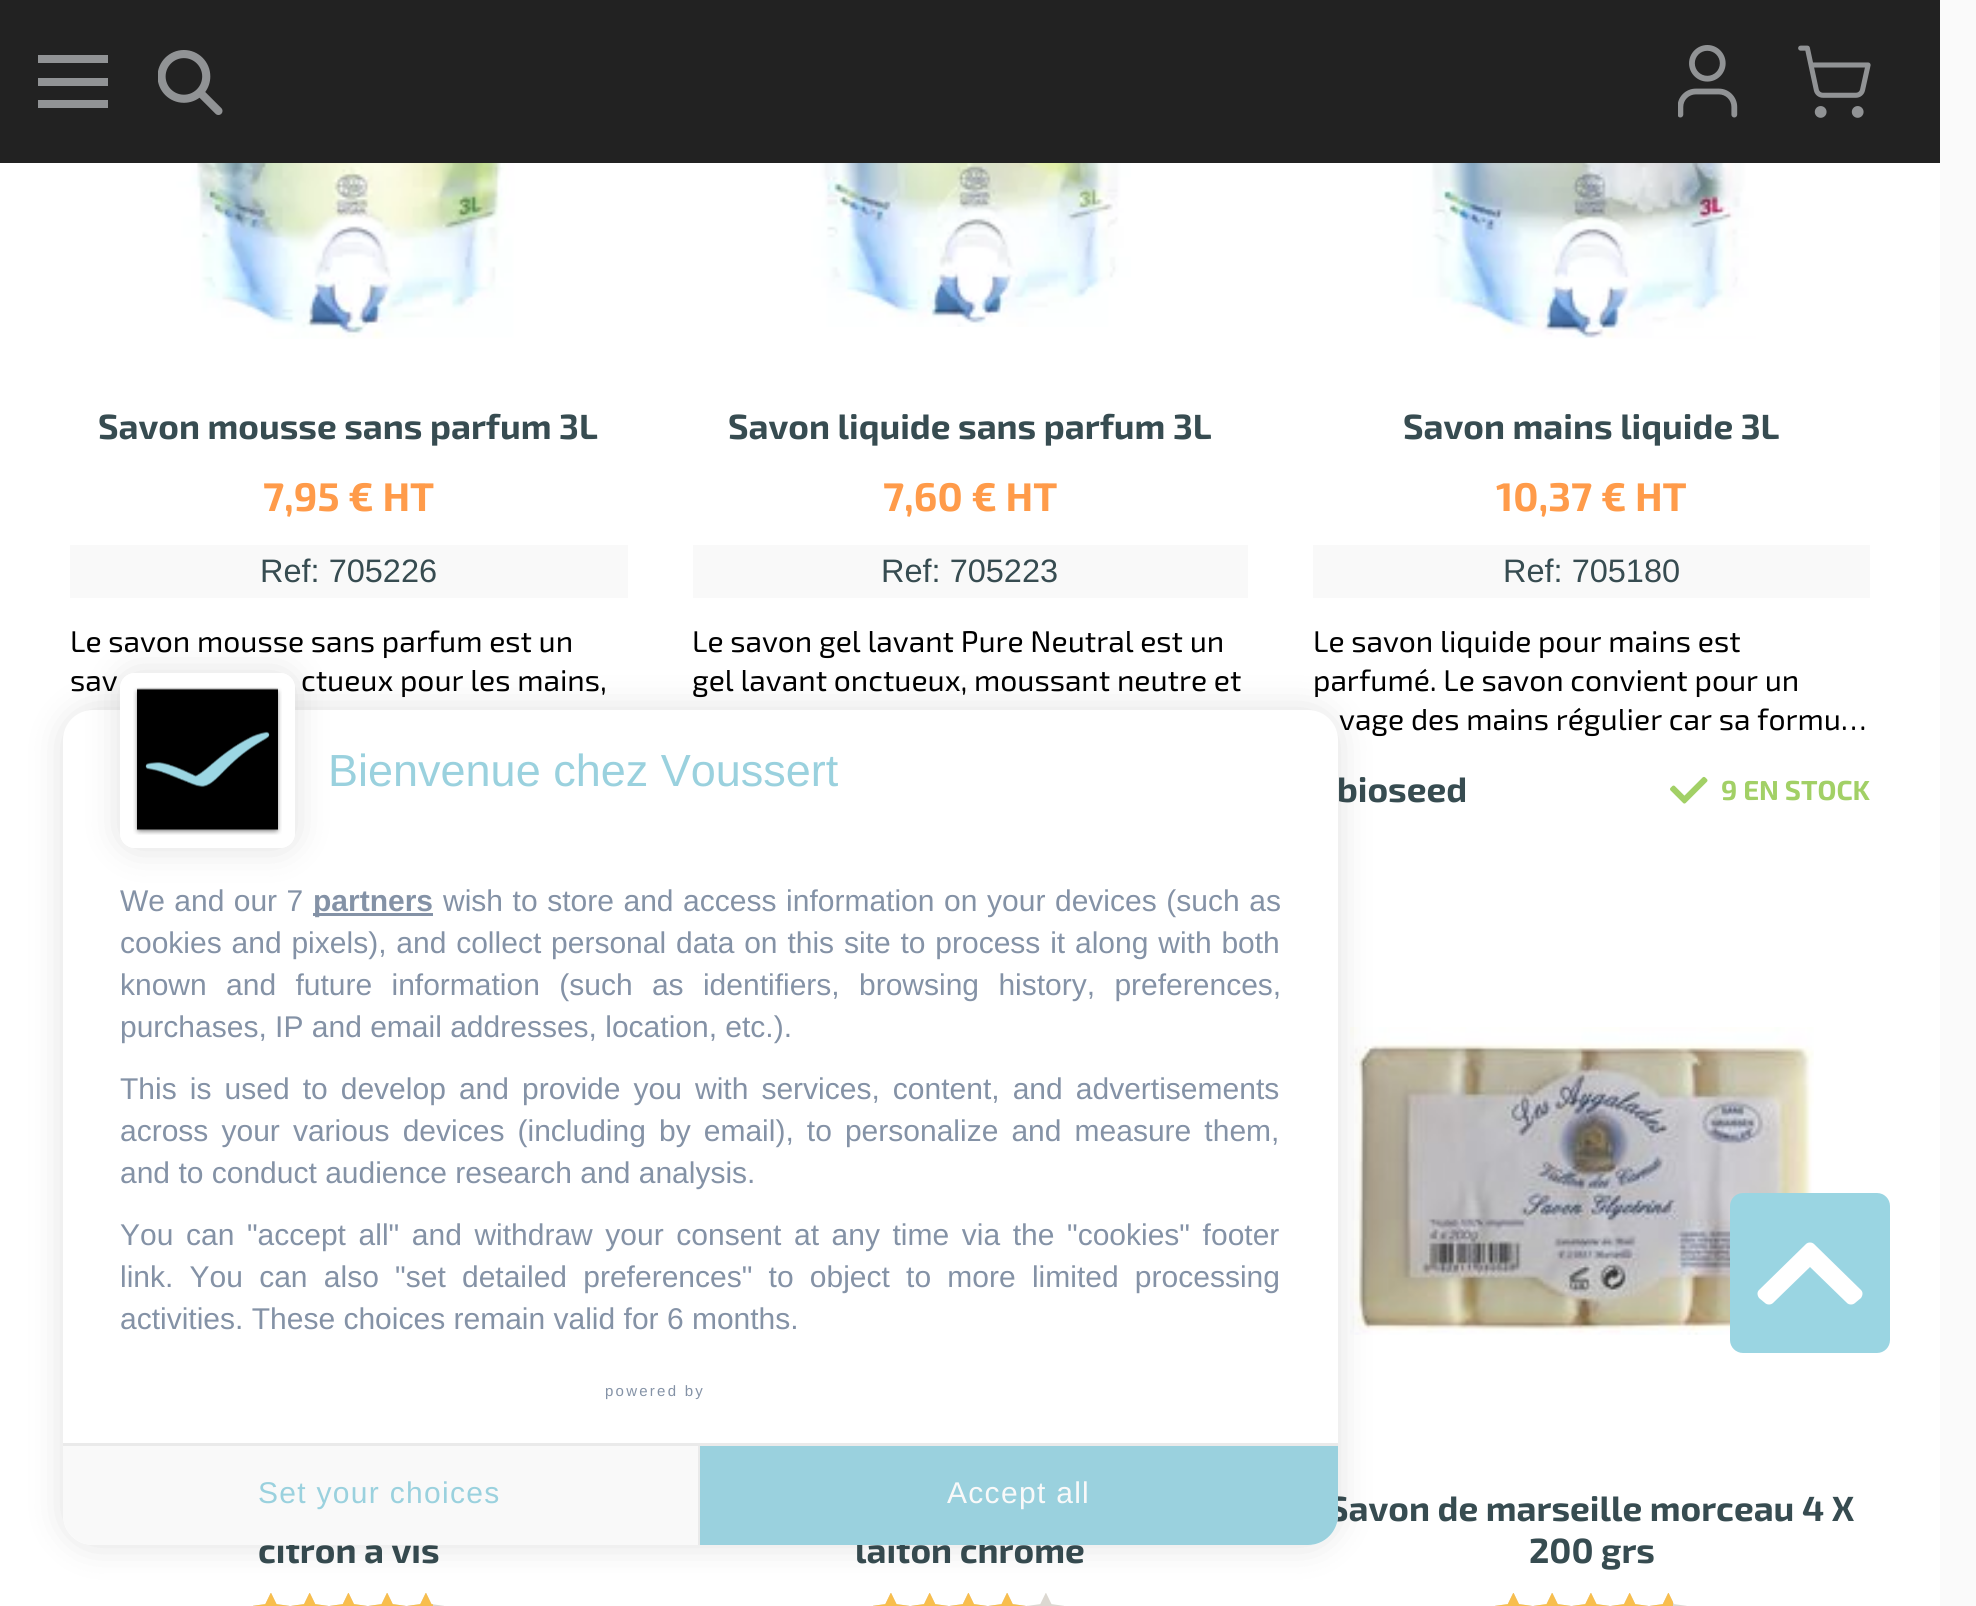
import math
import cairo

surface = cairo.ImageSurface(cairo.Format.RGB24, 1976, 1606)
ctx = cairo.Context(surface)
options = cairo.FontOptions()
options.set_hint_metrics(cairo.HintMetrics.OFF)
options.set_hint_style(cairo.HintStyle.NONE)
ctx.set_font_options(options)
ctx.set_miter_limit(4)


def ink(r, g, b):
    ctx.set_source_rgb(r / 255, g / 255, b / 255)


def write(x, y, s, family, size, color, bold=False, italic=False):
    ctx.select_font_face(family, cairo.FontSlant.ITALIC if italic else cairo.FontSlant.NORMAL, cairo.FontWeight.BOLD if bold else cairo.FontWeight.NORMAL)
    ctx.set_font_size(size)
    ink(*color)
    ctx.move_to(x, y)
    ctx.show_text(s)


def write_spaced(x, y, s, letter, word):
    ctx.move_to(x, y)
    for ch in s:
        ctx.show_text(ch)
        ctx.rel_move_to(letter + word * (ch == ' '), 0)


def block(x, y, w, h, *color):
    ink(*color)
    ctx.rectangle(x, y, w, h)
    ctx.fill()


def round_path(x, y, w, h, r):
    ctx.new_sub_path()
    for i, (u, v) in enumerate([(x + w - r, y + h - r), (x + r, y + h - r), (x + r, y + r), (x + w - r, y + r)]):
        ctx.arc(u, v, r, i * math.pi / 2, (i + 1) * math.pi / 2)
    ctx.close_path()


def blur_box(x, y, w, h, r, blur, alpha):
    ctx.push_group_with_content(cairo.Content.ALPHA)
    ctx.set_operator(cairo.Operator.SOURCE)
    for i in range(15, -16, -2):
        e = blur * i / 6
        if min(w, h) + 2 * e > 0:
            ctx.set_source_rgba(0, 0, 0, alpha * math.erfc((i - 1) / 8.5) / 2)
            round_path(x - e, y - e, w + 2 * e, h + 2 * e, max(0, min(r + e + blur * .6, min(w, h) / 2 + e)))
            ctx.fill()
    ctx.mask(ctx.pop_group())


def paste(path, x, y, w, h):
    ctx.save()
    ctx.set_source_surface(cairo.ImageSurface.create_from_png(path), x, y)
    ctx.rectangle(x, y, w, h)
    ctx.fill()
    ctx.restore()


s1 = dict(family="Exo 2", size=35, color=(55, 76, 81), bold=True)
s2 = dict(family="Exo 2", size=40, color=(255, 155, 74), bold=True)
s3 = dict(family="Liberation Sans", size=32.5, color=(55, 76, 81))
s4 = dict(family="Exo 2", size=30, color=(0, 0, 0))
s5 = dict(family="Exo 2", size=27.5, color=(162, 208, 102), bold=True)
s6 = dict(family="Liberation Sans", size=45, color=(154, 209, 222))
s7 = dict(family="Liberation Sans", size=30, color=(132, 146, 166), bold=True)
s8 = dict(family="Liberation Sans", size=30, color=(132, 146, 166))

ink(250, 250, 250)
ctx.paint()
block(0, 0, 1940, 163, 34, 34, 34)
block(38, 100, 70, 8, 145, 147, 149)
block(38, 55, 70, 8, 145, 147, 149)
block(38, 78, 70, 8, 145, 147, 149)
paste("pic1.png", 158, 50, 65, 65)
paste("pic2.png", 1678, 45, 60, 73)
paste("pic3.png", 1798, 45, 73, 73)
block(0, 163, 1940, 1443, 255, 255, 255)
paste("pic4.png", 172, 163, 343, 176)
write(98, 439, "Savon mousse sans parfum 3L", **s1)
write(263, 511, "7,95 € HT", **s2)
block(70, 545, 558, 53, 249, 249, 249)
write(260, 582, "Ref: 705226", **s3)
write(70, 652, "Le savon mousse sans parfum est un", **s4)
write(70, 691, "sav", **s4)
write(301, 691, "ctueux pour les mains,", **s4)
paste("pic5.png", 807, 163, 324, 164)
write(728, 439, "Savon liquide sans parfum 3L", **s1)
write(883, 511, "7,60 € HT", **s2)
block(693, 545, 555, 53, 249, 249, 249)
write(881, 582, "Ref: 705223", **s3)
write(692, 652, "Le savon gel lavant Pure Neutral est un", **s4)
write(692, 691, "gel lavant onctueux, moussant neutre et", **s4)
paste("pic6.png", 1412, 163, 344, 176)
write(1403, 439, "Savon mains liquide 3L", **s1)
write(1496, 511, "10,37 € HT", **s2)
block(1313, 545, 557, 53, 249, 249, 249)
write(1503, 582, "Ref: 705180", **s3)
write(1313, 652, "Le savon liquide pour mains est", **s4)
write(1313, 691, "parfumé. Le savon convient pour un", **s4)
write(1339, 730, "vage des mains régulier car sa formu…", **s4)
write(1337, 802, "bioseed", **s1)
paste("pic7.png", 1670, 776, 38, 28)
write(1721, 800, "9 EN STOCK", **s5)
write(258, 1563, "citron a vis", **s1)
paste("pic8.png", 253, 1593, 191, 13)
paste("pic9.png", 253, 1593, 180, 13)
write(855, 1563, "laiton chrome", **s1)
paste("pic8.png", 873, 1593, 191, 13)
paste("pic10.png", 873, 1593, 155, 13)
paste("pic11.png", 1350, 1027, 464, 308)
write(1328, 1521, "Savon de marseille morceau 4 X", **s1)
write(1529, 1563, "200 grs", **s1)
paste("pic12.png", 1495, 1593, 192, 13)
paste("pic13.png", 1495, 1593, 178, 13)
ink(0, 0, 0)
blur_box(63, 710, 1275, 835, 30, 19, 0.12)
ink(255, 255, 255)
round_path(63, 710, 1275, 835, 30)
ctx.fill()
ink(0, 0, 0)
blur_box(120, 673, 175, 175, 15, 19, 0.12)
ink(255, 255, 255)
round_path(120, 673, 175, 175, 15)
ctx.fill()
paste("pic14.png", 133, 687, 149, 148)
round_path(126.5, 679.5, 162, 162, 8.5)
ctx.set_line_width(13)
ctx.stroke()
write(328, 786, "Bienvenue chez Voussert", **s6)
ctx.set_font_size(30)
ink(132, 146, 166)
write_spaced(120, 911, "We and our 7", 0, 1)
block(313, 913, 120, 3, 132, 146, 166)
write(313, 911, "partners", **s7)
ctx.select_font_face("Liberation Sans")
write_spaced(443, 911, "wish to store and access information on your devices (such as", 0, 1.25)
write_spaced(120, 953, "cookies and pixels), and collect personal data on this site to process it along with both", 0, 1.5)
write_spaced(120, 995, "known and future information (such as identifiers, browsing history, preferences,", 0, 11)
write(120, 1037, "purchases, IP and email addresses, location, etc.).", **s8)
write_spaced(120, 1099, "This is used to develop and provide you with services, content, and advertisements", 0, 4.75)
write_spaced(120, 1141, "across your various devices (including by email), to personalize and measure them,", 0, 4.75)
write(120, 1183, "and to conduct audience research and analysis.", **s8)
write_spaced(120, 1245, "You can \"accept all\" and withdraw your consent at any time via the \"cookies\" footer", 0, 4.25)
write(120, 1287, "link", **s8)
write_spaced(165, 1287, ". You can also \"set detailed preferences\" to object to more limited processing", 0, 7.9)
write(120, 1329, "activities. These choices remain valid for 6 months.", **s8)
ctx.set_font_size(15)
write_spaced(605, 1396, "powered by", 2.25, 0)
ink(249, 249, 249)
ctx.new_path()
ctx.move_to(63, 1443)
ctx.line_to(700, 1443)
ctx.line_to(700, 1545)
ctx.line_to(93, 1545)
ctx.curve_to(76.5, 1545, 63, 1531.5, 63, 1515)
ctx.close_path()
ctx.fill()
block(63, 1443, 637, 3, 234, 234, 234)
block(698, 1443, 2, 102, 234, 234, 234)
ctx.set_font_size(30)
ink(154, 209, 222)
write_spaced(258, 1503, "Set your choices", 1.3, 0)
ctx.new_path()
ctx.move_to(700, 1443)
ctx.line_to(1338, 1443)
ctx.line_to(1338, 1515)
ctx.curve_to(1338, 1531.5, 1324.5, 1545, 1308, 1545)
ctx.line_to(700, 1545)
ctx.close_path()
ctx.fill()
block(700, 1443, 638, 3, 234, 234, 234)
ink(249, 249, 249)
write_spaced(947, 1503, "Accept all", 1.3, 0)
ink(154, 213, 226)
round_path(1730, 1193, 160, 160, 13)
ctx.fill()
ink(255, 255, 255)
ctx.set_fill_rule(cairo.FillRule.EVEN_ODD)
ctx.new_path()
ctx.move_to(1814, 1244)
ctx.line_to(1861, 1290)
ctx.curve_to(1863, 1292, 1863, 1295, 1861, 1298)
ctx.line_to(1855, 1303)
ctx.curve_to(1853, 1305, 1849, 1305, 1847, 1303)
ctx.line_to(1810, 1267)
ctx.line_to(1773, 1303)
ctx.curve_to(1771, 1305, 1767, 1305, 1765, 1303)
ctx.line_to(1759, 1298)
ctx.curve_to(1757, 1295, 1757, 1292, 1759, 1290)
ctx.line_to(1806, 1244)
ctx.curve_to(1808, 1242, 1812, 1242, 1814, 1244)
ctx.close_path()
ctx.fill()
surface.write_to_png("screenshot.png")
